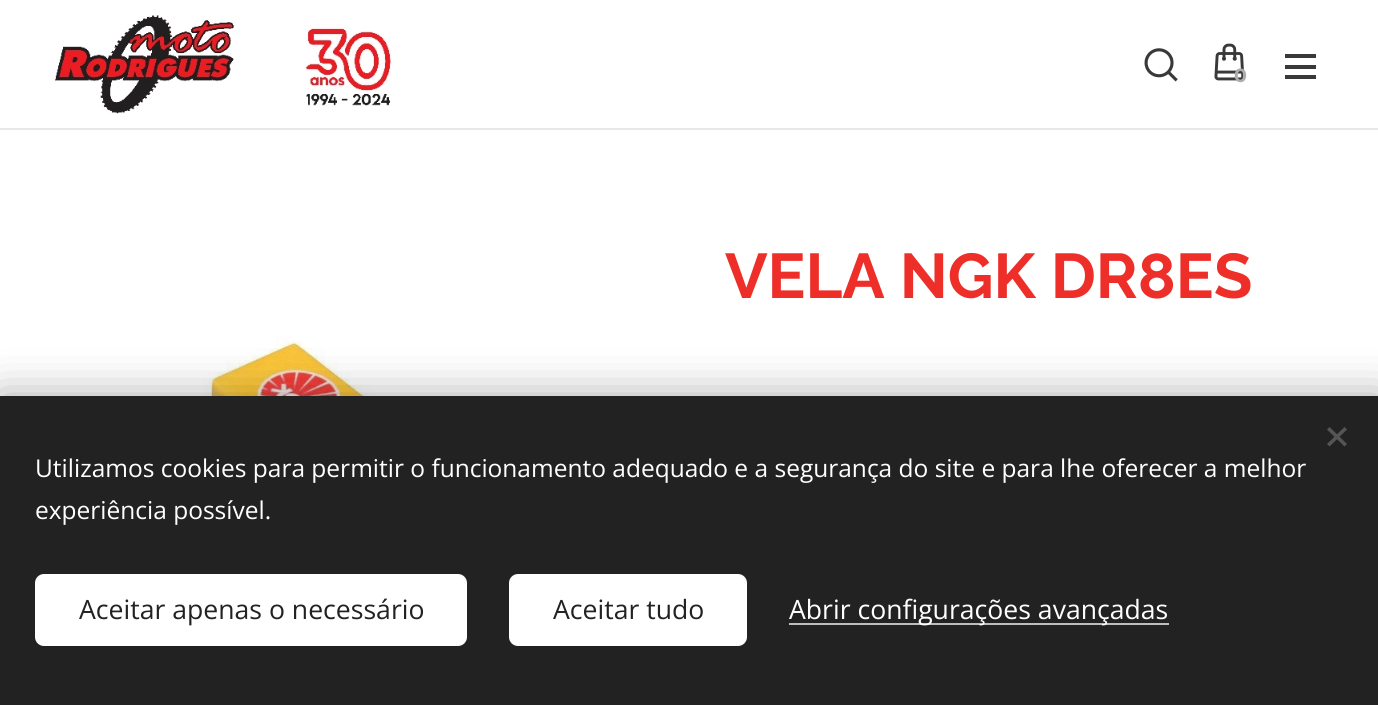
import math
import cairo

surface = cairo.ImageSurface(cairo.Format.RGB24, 1378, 705)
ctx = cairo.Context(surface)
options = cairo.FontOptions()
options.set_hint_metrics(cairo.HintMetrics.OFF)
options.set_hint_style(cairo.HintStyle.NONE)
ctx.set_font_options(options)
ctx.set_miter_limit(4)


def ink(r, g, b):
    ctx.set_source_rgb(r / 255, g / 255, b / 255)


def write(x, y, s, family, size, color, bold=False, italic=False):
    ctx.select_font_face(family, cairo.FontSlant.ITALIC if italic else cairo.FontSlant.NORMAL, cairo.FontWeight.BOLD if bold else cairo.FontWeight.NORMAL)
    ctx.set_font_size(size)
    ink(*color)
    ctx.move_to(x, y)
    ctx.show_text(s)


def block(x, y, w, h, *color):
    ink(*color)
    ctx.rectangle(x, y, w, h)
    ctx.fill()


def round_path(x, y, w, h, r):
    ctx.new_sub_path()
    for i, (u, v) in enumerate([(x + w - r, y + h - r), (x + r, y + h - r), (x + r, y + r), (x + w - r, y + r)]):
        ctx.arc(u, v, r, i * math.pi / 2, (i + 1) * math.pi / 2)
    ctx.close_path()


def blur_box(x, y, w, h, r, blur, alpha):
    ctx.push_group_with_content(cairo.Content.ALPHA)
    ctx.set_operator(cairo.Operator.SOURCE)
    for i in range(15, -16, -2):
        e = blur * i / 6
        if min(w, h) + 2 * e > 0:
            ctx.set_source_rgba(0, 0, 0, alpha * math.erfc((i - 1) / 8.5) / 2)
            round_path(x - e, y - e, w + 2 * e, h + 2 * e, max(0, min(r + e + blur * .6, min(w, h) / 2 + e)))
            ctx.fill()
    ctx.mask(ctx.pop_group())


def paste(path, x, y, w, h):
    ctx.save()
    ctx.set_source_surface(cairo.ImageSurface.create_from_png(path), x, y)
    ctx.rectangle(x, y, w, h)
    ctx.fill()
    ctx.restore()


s1 = dict(family="Montserrat", size=19, color=(173, 173, 173), bold=True)
s2 = dict(family="Raleway", size=63, color=(237, 46, 41), bold=True)
s3 = dict(family="Open Sans", size=24.5, color=(255, 255, 255))
s4 = dict(family="Open Sans", size=26.6, color=(34, 34, 34))
s5 = dict(family="Open Sans", size=26.6, color=(255, 255, 255))

ink(255, 255, 255)
ctx.paint()
paste("pic1.png", 55, 15, 337, 99)
paste("pic2.png", 1144, 48, 34, 34)
paste("pic3.png", 1214, 43, 31, 38)
write(1234, 82, "0", **s1)
block(1285, 65, 31, 4, 57, 57, 57)
block(1285, 54, 31, 4, 57, 57, 57)
block(1285, 75, 31, 4, 57, 57, 57)
block(0, 128, 1378, 2, 232, 232, 232)
write(725, 298, "VELA NGK DR8ES", **s2)
paste("pic4.png", 111, 336, 470, 60)
ink(0, 0, 0)
blur_box(0, 396, 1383, 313, 0, 22, 0.33)
block(0, 396, 1378, 309, 34, 34, 34)
ink(85, 85, 85)
ctx.new_path()
ctx.move_to(1327, 444)
ctx.line_to(1344.5, 427)
ctx.line_to(1347, 429.5)
ctx.line_to(1329.5, 446.5)
ctx.close_path()
ctx.fill()
ctx.new_path()
ctx.move_to(1329.5, 427)
ctx.line_to(1347, 444)
ctx.line_to(1344.5, 446.5)
ctx.line_to(1327, 429.5)
ctx.close_path()
ctx.fill()
write(35, 477, "Utilizamos cookies para permitir o funcionamento adequado e a segurança do site e para lhe oferecer a melhor", **s3)
write(35, 519, "experiência possível.", **s3)
round_path(35, 574, 432, 72, 9)
ctx.fill()
write(79, 619, "Aceitar apenas o necessário", **s4)
ink(255, 255, 255)
round_path(509, 574, 238, 72, 9)
ctx.fill()
write(553, 619, "Aceitar tudo", **s4)
block(789, 623, 380, 2, 189, 189, 189)
write(789, 619, "Abrir configurações avançadas", **s5)
surface.write_to_png("screenshot.png")
